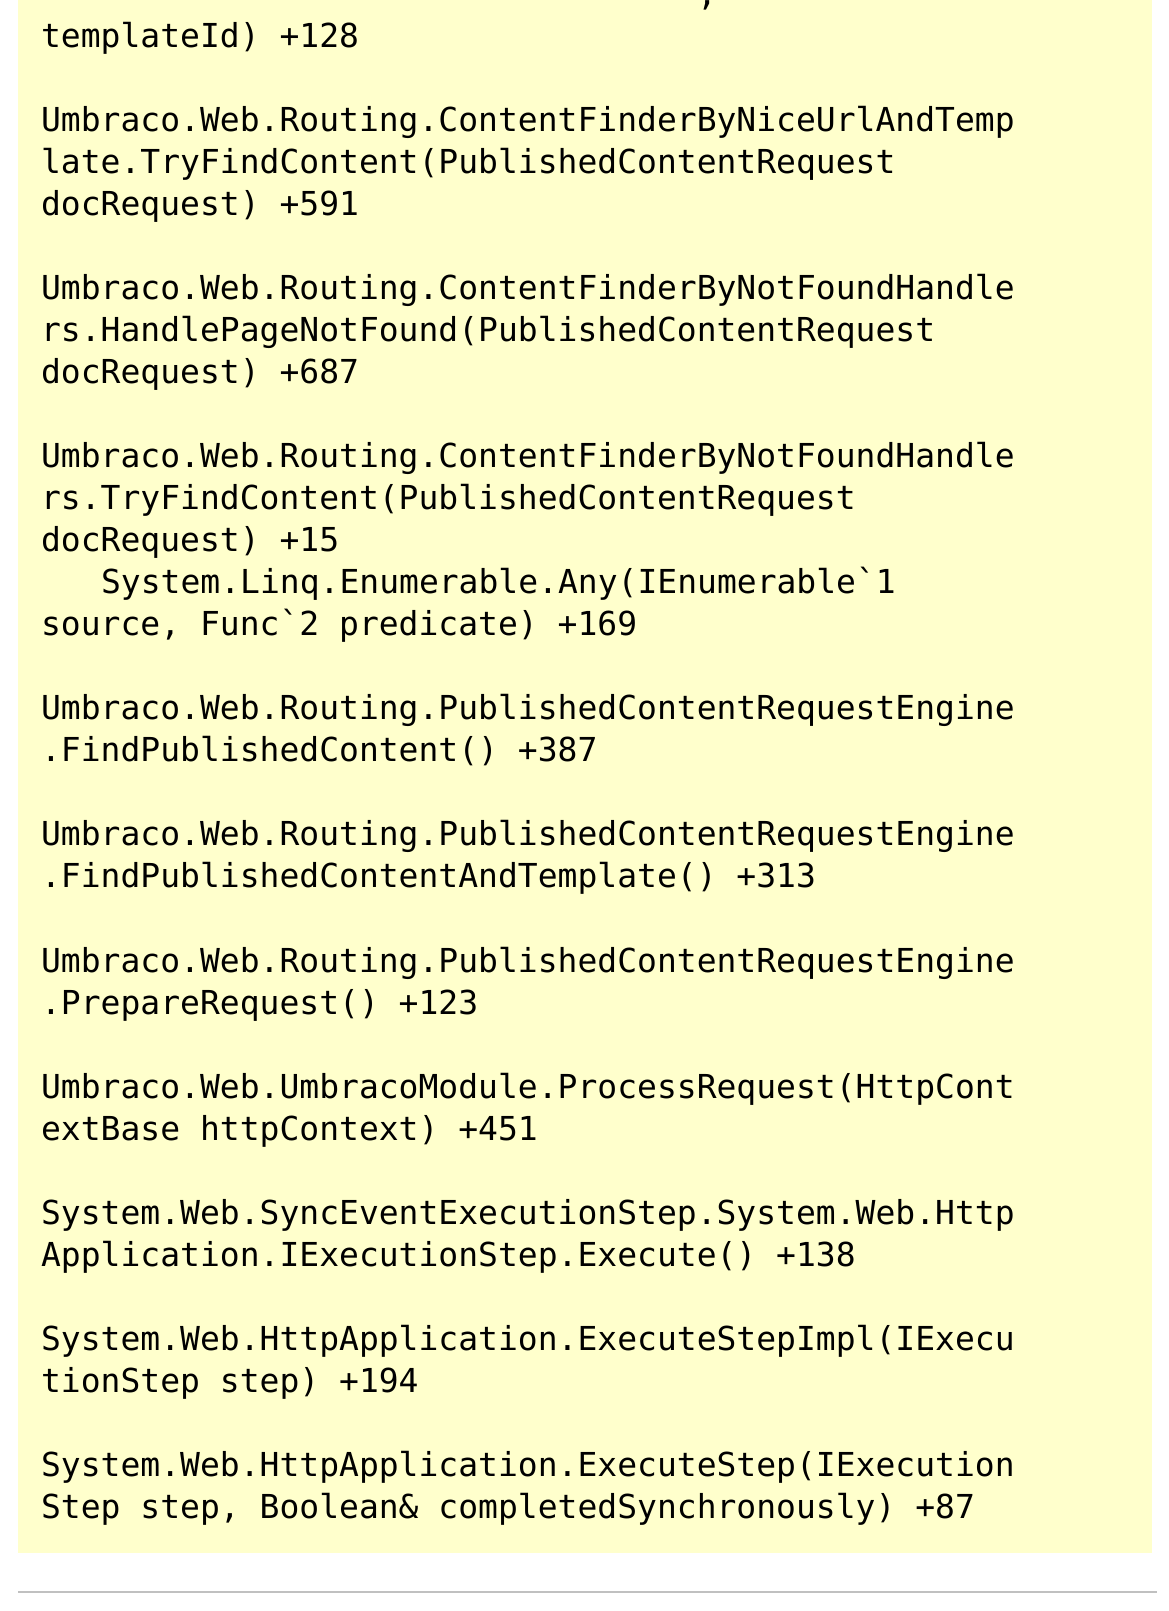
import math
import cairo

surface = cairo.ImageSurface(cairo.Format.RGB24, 1169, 1611)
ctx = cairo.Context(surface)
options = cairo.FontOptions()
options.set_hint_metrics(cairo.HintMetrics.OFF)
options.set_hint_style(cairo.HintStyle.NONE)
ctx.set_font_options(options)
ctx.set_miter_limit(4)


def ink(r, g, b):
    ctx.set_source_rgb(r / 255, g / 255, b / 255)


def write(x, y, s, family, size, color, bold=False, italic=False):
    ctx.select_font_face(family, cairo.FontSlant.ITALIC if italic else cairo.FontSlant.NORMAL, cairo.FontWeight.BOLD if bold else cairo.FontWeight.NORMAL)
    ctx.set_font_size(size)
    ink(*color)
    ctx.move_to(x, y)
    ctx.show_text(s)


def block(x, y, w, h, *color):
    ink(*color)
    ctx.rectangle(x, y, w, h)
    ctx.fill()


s1 = dict(family="DejaVu Sans Mono", size=33, color=(0, 0, 0))

ink(255, 255, 255)
ctx.paint()
block(18, 0, 1134, 1553, 255, 255, 204)
write(697, 5, ",", **s1)
write(41, 47, "templateId) +128", **s1)
write(41, 131, "Umbraco.Web.Routing.ContentFinderByNiceUrlAndTemp", **s1)
write(41, 173, "late.TryFindContent(PublishedContentRequest", **s1)
write(41, 215, "docRequest) +591", **s1)
write(41, 299, "Umbraco.Web.Routing.ContentFinderByNotFoundHandle", **s1)
write(41, 341, "rs.HandlePageNotFound(PublishedContentRequest", **s1)
write(41, 383, "docRequest) +687", **s1)
write(41, 467, "Umbraco.Web.Routing.ContentFinderByNotFoundHandle", **s1)
write(41, 509, "rs.TryFindContent(PublishedContentRequest", **s1)
write(41, 551, "docRequest) +15", **s1)
write(101, 593, "System.Linq.Enumerable.Any(IEnumerable`1", **s1)
write(41, 635, "source, Func`2 predicate) +169", **s1)
write(41, 719, "Umbraco.Web.Routing.PublishedContentRequestEngine", **s1)
write(41, 761, ".FindPublishedContent() +387", **s1)
write(41, 845, "Umbraco.Web.Routing.PublishedContentRequestEngine", **s1)
write(41, 887, ".FindPublishedContentAndTemplate() +313", **s1)
write(41, 972, "Umbraco.Web.Routing.PublishedContentRequestEngine", **s1)
write(41, 1014, ".PrepareRequest() +123", **s1)
write(41, 1098, "Umbraco.Web.UmbracoModule.ProcessRequest(HttpCont", **s1)
write(41, 1140, "extBase httpContext) +451", **s1)
write(41, 1224, "System.Web.SyncEventExecutionStep.System.Web.Http", **s1)
write(41, 1266, "Application.IExecutionStep.Execute() +138", **s1)
write(41, 1350, "System.Web.HttpApplication.ExecuteStepImpl(IExecu", **s1)
write(41, 1392, "tionStep step) +194", **s1)
write(41, 1476, "System.Web.HttpApplication.ExecuteStep(IExecution", **s1)
write(41, 1518, "Step step, Boolean& completedSynchronously) +87", **s1)
block(18, 1591, 1139, 2, 192, 192, 192)
surface.write_to_png("screenshot.png")
